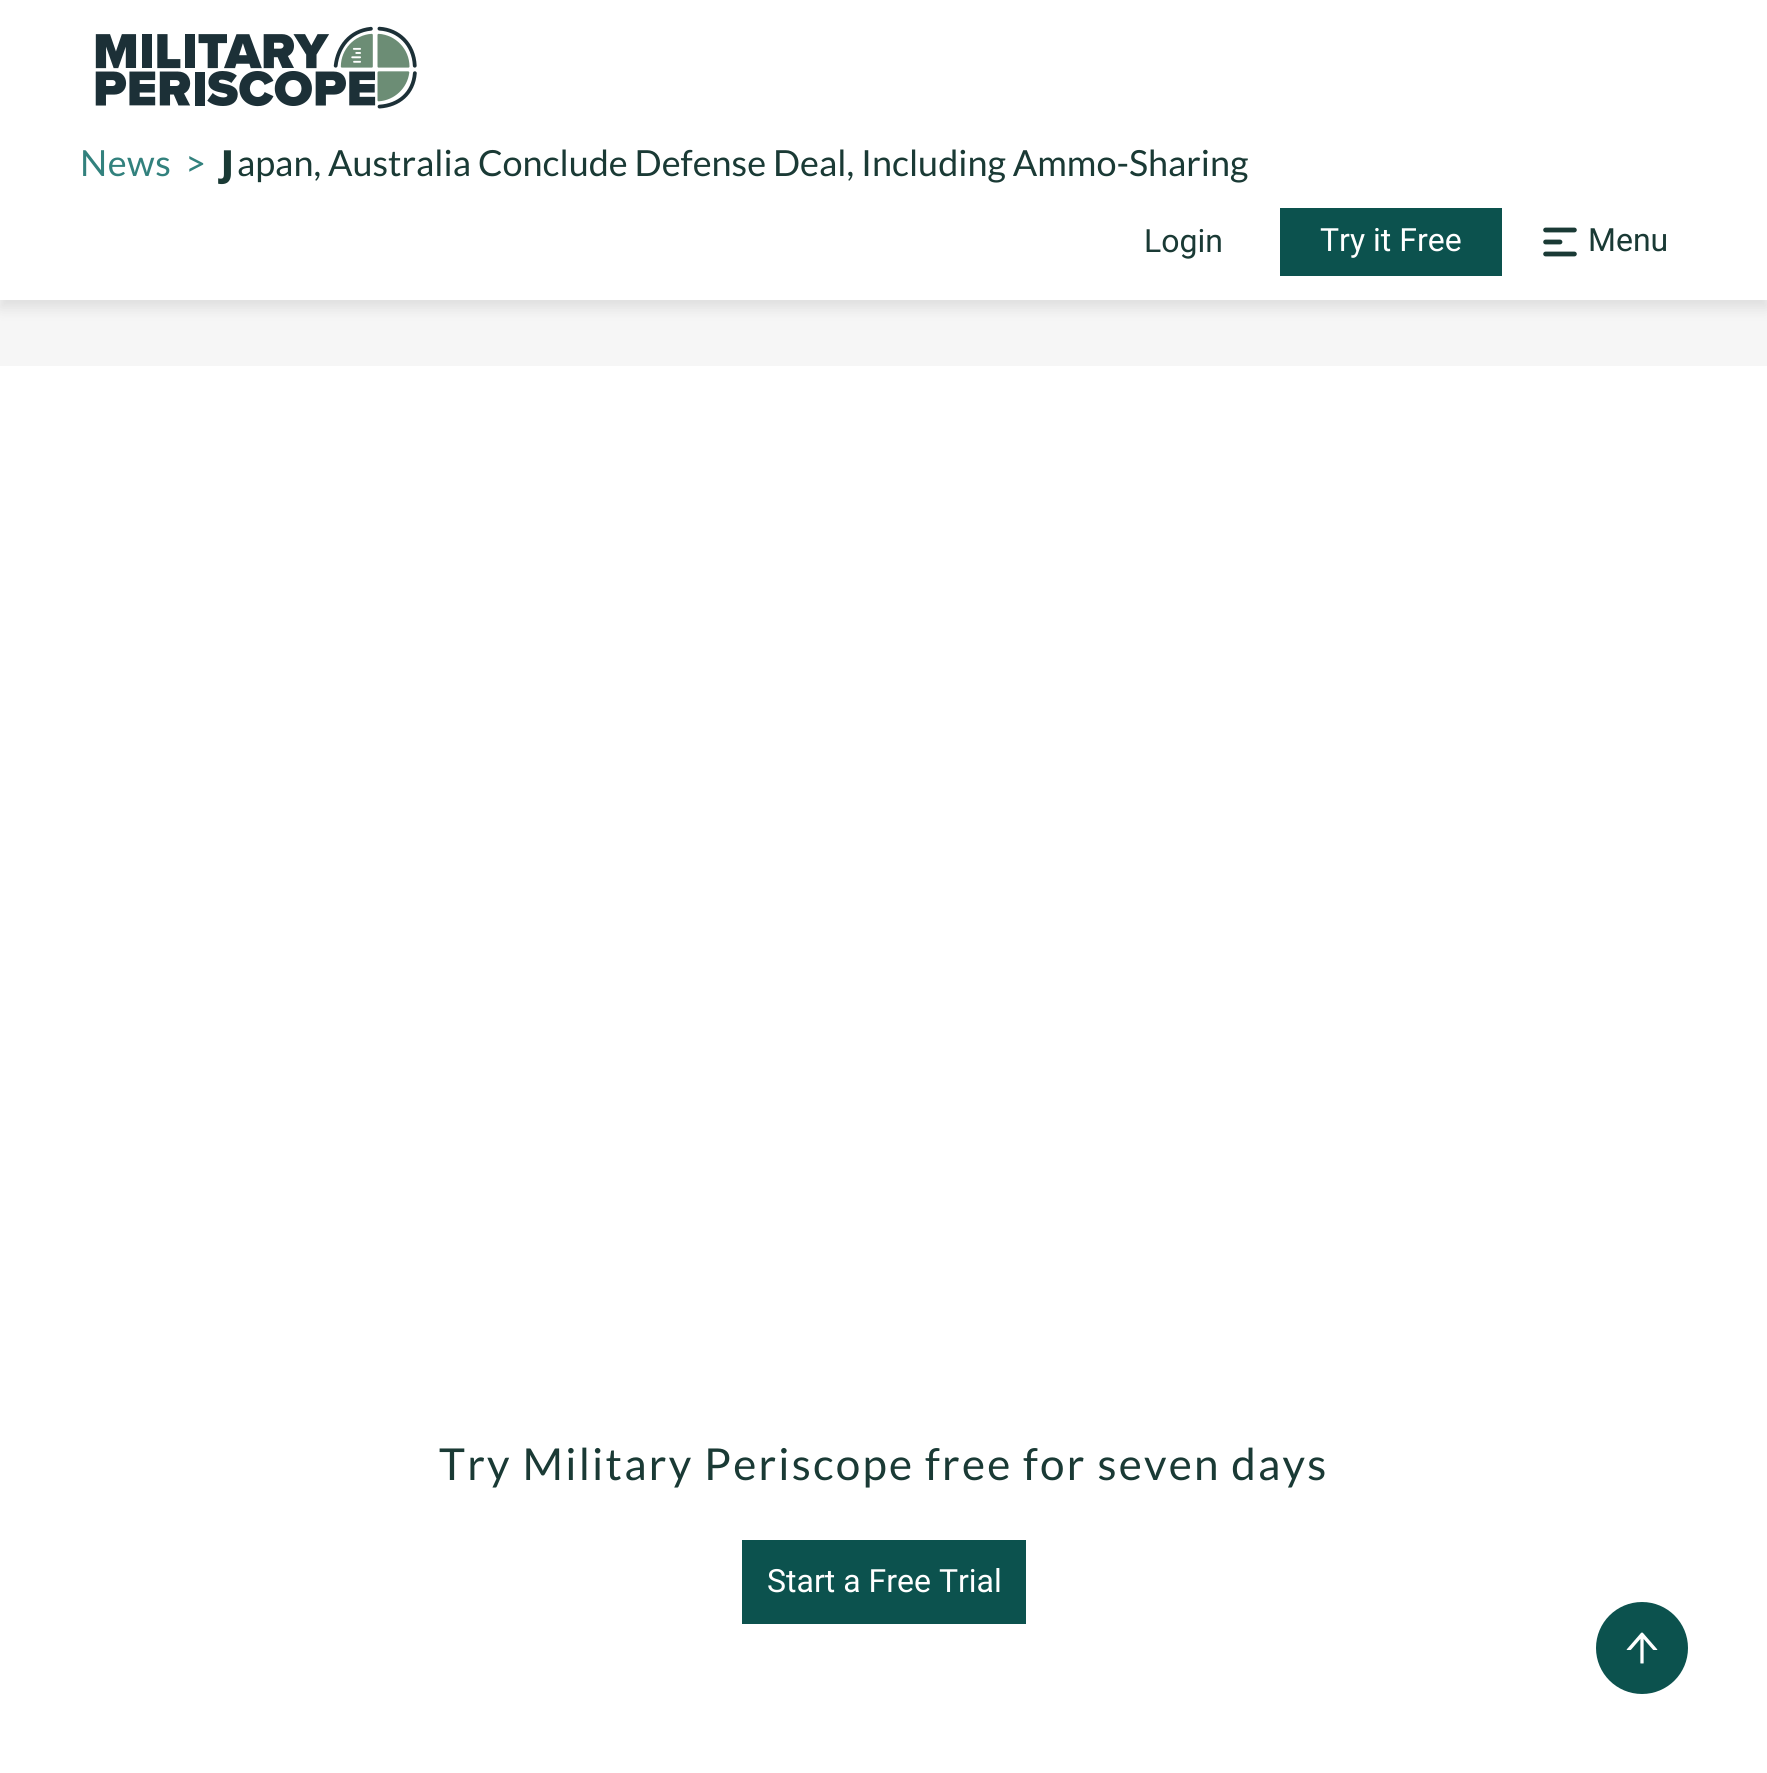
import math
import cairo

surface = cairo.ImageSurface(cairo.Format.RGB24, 1767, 1773)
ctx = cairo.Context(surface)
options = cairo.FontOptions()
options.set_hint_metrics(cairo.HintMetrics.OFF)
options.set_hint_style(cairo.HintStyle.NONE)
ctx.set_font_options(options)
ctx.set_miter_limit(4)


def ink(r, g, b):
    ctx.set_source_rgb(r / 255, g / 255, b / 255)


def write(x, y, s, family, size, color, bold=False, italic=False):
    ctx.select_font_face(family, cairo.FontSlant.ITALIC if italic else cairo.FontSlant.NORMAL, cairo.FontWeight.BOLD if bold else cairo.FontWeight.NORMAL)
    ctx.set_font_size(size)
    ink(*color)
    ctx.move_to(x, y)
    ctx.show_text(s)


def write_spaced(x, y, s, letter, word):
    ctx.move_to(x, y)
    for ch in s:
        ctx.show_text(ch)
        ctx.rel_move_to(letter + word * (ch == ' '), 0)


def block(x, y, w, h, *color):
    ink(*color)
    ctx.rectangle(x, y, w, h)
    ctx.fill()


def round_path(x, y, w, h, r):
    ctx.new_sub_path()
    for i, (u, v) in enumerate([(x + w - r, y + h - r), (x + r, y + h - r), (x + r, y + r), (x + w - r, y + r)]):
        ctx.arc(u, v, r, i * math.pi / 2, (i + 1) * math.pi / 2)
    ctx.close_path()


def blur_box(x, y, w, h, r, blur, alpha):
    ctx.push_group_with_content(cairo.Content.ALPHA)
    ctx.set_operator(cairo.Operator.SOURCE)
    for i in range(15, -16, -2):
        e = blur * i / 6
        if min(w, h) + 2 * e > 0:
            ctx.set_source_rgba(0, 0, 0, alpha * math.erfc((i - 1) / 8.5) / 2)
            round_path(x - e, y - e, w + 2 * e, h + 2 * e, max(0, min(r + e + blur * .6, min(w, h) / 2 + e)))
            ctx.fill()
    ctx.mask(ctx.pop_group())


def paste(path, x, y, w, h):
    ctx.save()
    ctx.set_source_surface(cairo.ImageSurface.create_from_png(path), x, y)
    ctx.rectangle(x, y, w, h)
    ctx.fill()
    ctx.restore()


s1 = dict(family="Noto Sans Black", size=36, color=(26, 58, 53))
s2 = dict(family="Lato", size=36, color=(26, 58, 53))
s3 = dict(family="Roboto", size=32, color=(26, 58, 53))
s4 = dict(family="Roboto", size=32, color=(255, 255, 255))

ink(255, 255, 255)
ctx.paint()
block(0, 300, 1767, 66, 246, 246, 246)
ink(0, 0, 0)
blur_box(0, 6, 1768, 302, 0, 7, 0.1)
block(0, 0, 1767, 300, 255, 255, 255)
paste("pic1.png", 95, 26, 322, 83)
ctx.select_font_face("Lato")
ctx.set_font_size(36)
ink(50, 129, 125)
write_spaced(80, 176, "News", 0.5, 0)
write_spaced(185, 176, ">", 0.5, 0)
write(221, 176, "J", **s1)
write(237, 176, "apan, Australia Conclude Defense Deal, Including Ammo-Sharing", **s2)
write(1144, 252, "Login", **s3)
block(1280, 208, 222, 68, 12, 82, 78)
write(1320, 251, "Try it Free", **s4)
paste("pic2.png", 1543, 227, 34, 30)
write(1588, 251, "Menu", **s3)
ctx.select_font_face("Lato")
ctx.set_font_size(44)
write_spaced(439, 1480, "Try Military Periscope free for seven days", 2.2, 0)
block(742, 1540, 284, 84, 12, 82, 78)
write(767, 1592, "Start a Free Trial", **s4)
ink(12, 82, 78)
ctx.new_path()
ctx.arc(1642, 1648, 46, 0, 2 * math.pi)
ctx.fill()
paste("pic3.png", 1626, 1632, 32, 32)
surface.write_to_png("screenshot.png")
